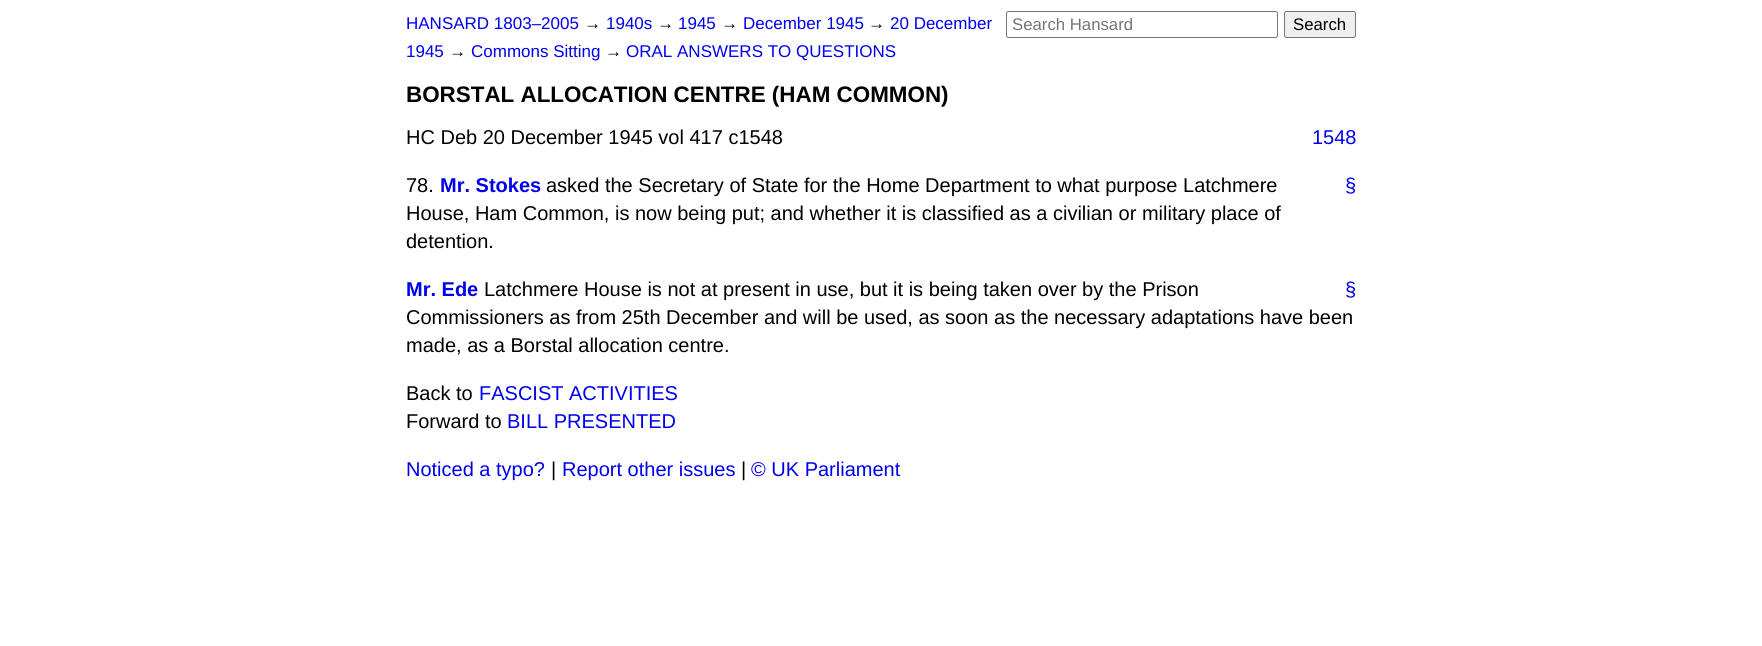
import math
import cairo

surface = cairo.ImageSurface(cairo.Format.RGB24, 1762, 646)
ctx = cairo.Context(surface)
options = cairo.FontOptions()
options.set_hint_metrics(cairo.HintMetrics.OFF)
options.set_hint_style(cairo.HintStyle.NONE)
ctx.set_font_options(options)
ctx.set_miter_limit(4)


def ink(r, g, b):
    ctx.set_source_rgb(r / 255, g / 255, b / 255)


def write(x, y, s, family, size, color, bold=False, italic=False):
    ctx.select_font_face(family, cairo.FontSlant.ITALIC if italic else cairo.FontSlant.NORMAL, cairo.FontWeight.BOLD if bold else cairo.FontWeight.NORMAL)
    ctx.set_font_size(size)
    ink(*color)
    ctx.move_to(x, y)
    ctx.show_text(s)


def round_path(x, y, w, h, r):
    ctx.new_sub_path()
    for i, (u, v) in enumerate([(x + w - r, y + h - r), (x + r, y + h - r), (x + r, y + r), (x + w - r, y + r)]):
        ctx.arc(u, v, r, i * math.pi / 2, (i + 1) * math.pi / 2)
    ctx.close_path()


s1 = dict(family="Liberation Sans", size=17, color=(0, 0, 238))
s2 = dict(family="Liberation Sans", size=17, color=(0, 0, 0))
s3 = dict(family="Liberation Sans", size=16.75, color=(117, 117, 117))
s4 = dict(family="Liberation Sans", size=16.75, color=(0, 0, 0))
s5 = dict(family="Liberation Sans", size=22.4, color=(0, 0, 0), bold=True)
s6 = dict(family="Liberation Sans", size=20, color=(0, 0, 0))
s7 = dict(family="Liberation Sans", size=20, color=(0, 0, 238))
s8 = dict(family="Liberation Sans", size=20, color=(0, 0, 238), bold=True)

ink(255, 255, 255)
ctx.paint()
write(406, 29, "HANSARD 1803–2005", **s1)
write(584, 29, "→", **s2)
write(606, 29, "1940s", **s1)
write(657, 29, "→", **s2)
write(678, 29, "1945", **s1)
write(721, 29, "→", **s2)
write(743, 29, "December 1945", **s1)
write(868, 29, "→", **s2)
write(890, 29, "20 December", **s1)
write(406, 57, "1945", **s1)
write(449, 57, "→", **s2)
write(471, 57, "Commons Sitting", **s1)
write(605, 57, "→", **s2)
write(626, 57, "ORAL ANSWERS TO QUESTIONS", **s1)
round_path(1006.5, 11.5, 271, 26, 2)
ink(118, 118, 118)
ctx.set_line_width(1)
ctx.stroke()
write(1012, 30, "Search Hansard", **s3)
ink(239, 239, 239)
round_path(1284.5, 11.5, 71, 26, 2)
ctx.fill_preserve()
ink(118, 118, 118)
ctx.stroke()
write(1293, 30, "Search", **s4)
write(406, 102, "BORSTAL ALLOCATION CENTRE (HAM COMMON)", **s5)
write(406, 144, "HC Deb 20 December 1945 vol 417 c1548", **s6)
write(1312, 144, "1548", **s7)
write(406, 192, "78.", **s6)
write(440, 192, "Mr. Stokes", **s8)
write(546, 192, "asked the Secretary of State for the Home Department to what purpose Latchmere", **s6)
write(1345, 192, "§", **s7)
write(406, 220, "House, Ham Common, is now being put; and whether it is classified as a civilian or military place of", **s6)
write(406, 248, "detention.", **s6)
write(406, 296, "Mr. Ede", **s8)
write(484, 296, "Latchmere House is not at present in use, but it is being taken over by the Prison", **s6)
write(1345, 296, "§", **s7)
write(406, 324, "Commissioners as from 25th December and will be used, as soon as the necessary adaptations have been", **s6)
write(406, 352, "made, as a Borstal allocation centre.", **s6)
write(406, 400, "Back to", **s6)
write(479, 400, "FASCIST ACTIVITIES", **s7)
write(406, 428, "Forward to", **s6)
write(507, 428, "BILL PRESENTED", **s7)
write(406, 476, "Noticed a typo?", **s7)
write(551, 476, "|", **s6)
write(562, 476, "Report other issues", **s7)
write(741, 476, "|", **s6)
write(751, 476, "© UK Parliament", **s7)
surface.write_to_png("screenshot.png")
